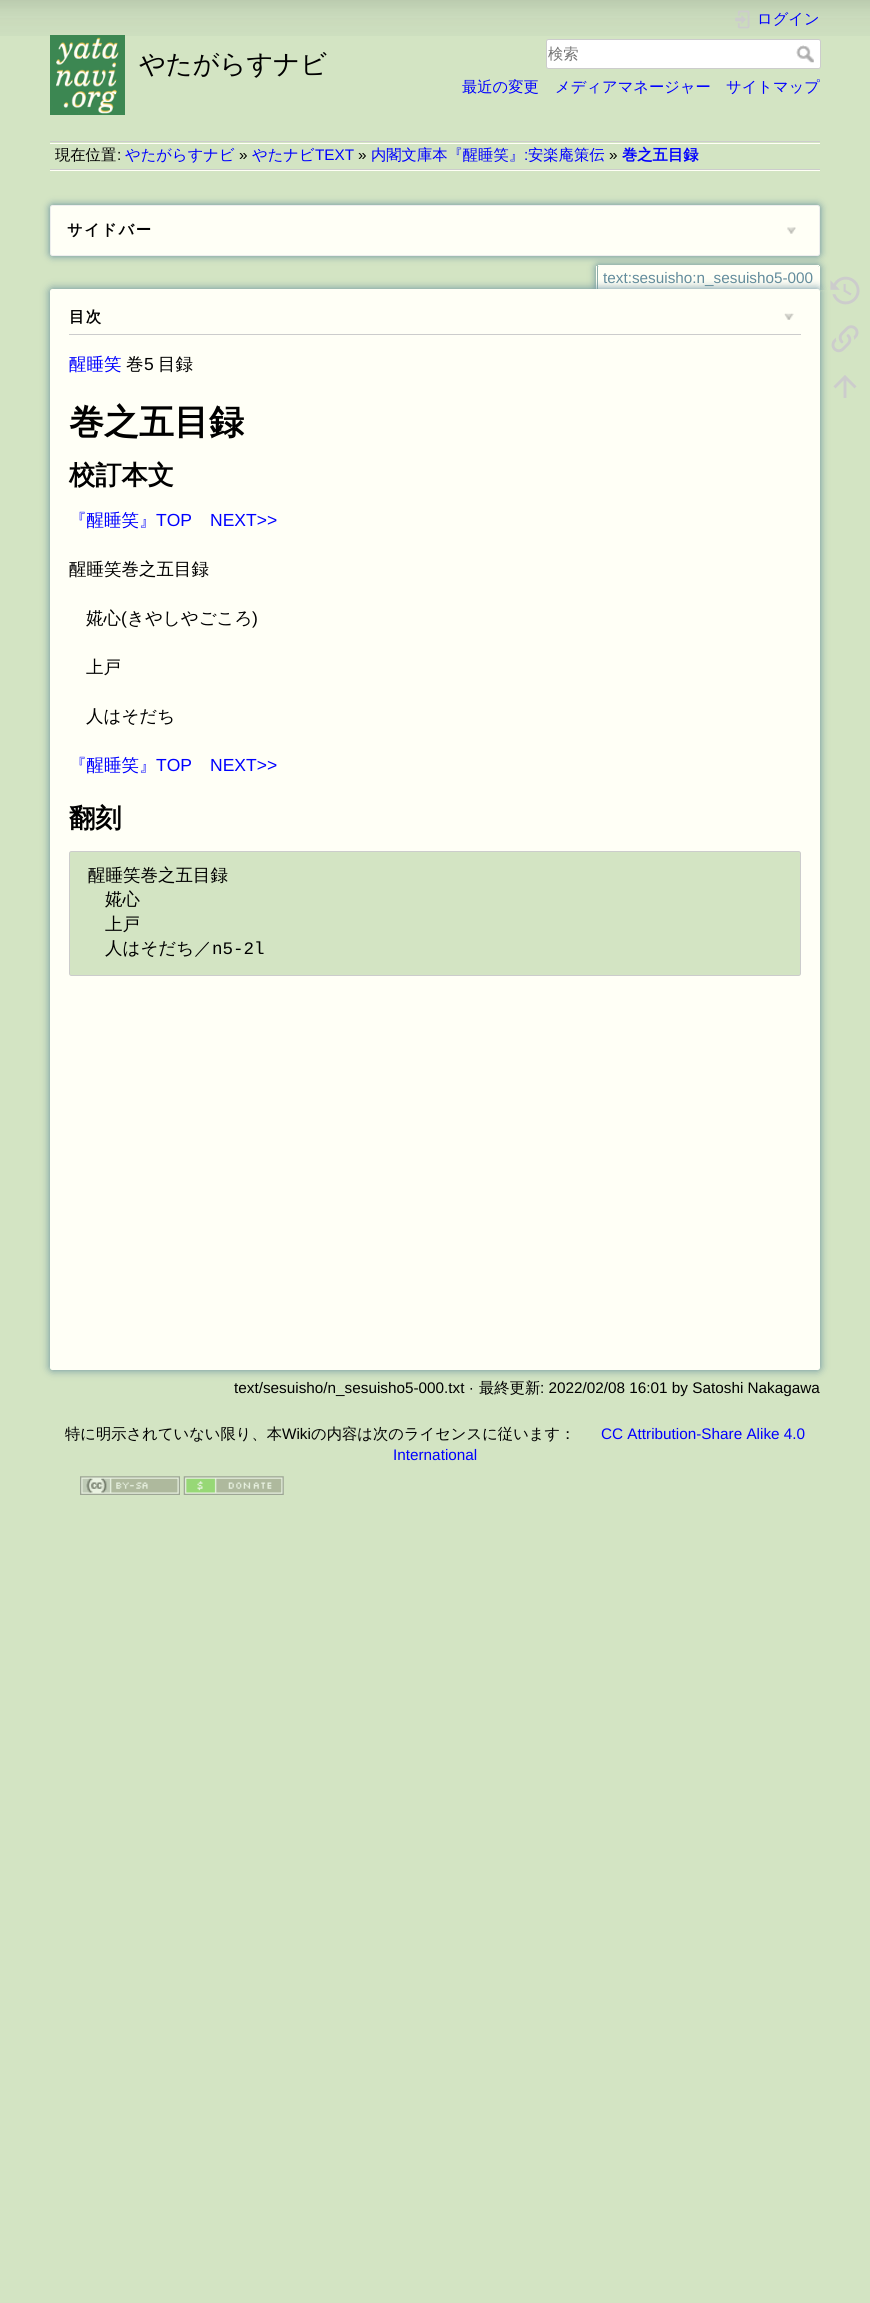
import math
import cairo

surface = cairo.ImageSurface(cairo.Format.RGB24, 870, 2303)
ctx = cairo.Context(surface)
options = cairo.FontOptions()
options.set_hint_metrics(cairo.HintMetrics.OFF)
options.set_hint_style(cairo.HintStyle.NONE)
ctx.set_font_options(options)
ctx.set_miter_limit(4)


def ink(r, g, b):
    ctx.set_source_rgb(r / 255, g / 255, b / 255)


def write(x, y, s, family, size, color, bold=False, italic=False):
    ctx.select_font_face(family, cairo.FontSlant.ITALIC if italic else cairo.FontSlant.NORMAL, cairo.FontWeight.BOLD if bold else cairo.FontWeight.NORMAL)
    ctx.set_font_size(size)
    ink(*color)
    ctx.move_to(x, y)
    ctx.show_text(s)


def write_spaced(x, y, s, letter, word):
    ctx.move_to(x, y)
    for ch in s:
        ctx.show_text(ch)
        ctx.rel_move_to(letter + word * (ch == ' '), 0)


def block(x, y, w, h, *color):
    ink(*color)
    ctx.rectangle(x, y, w, h)
    ctx.fill()


def round_path(x, y, w, h, r):
    ctx.new_sub_path()
    for i, (u, v) in enumerate([(x + w - r, y + h - r), (x + r, y + h - r), (x + r, y + r), (x + w - r, y + r)]):
        ctx.arc(u, v, r, i * math.pi / 2, (i + 1) * math.pi / 2)
    ctx.close_path()


def blur_box(x, y, w, h, r, blur, alpha):
    ctx.push_group_with_content(cairo.Content.ALPHA)
    ctx.set_operator(cairo.Operator.SOURCE)
    for i in range(15, -16, -2):
        e = blur * i / 6
        if min(w, h) + 2 * e > 0:
            ctx.set_source_rgba(0, 0, 0, alpha * math.erfc((i - 1) / 8.5) / 2)
            round_path(x - e, y - e, w + 2 * e, h + 2 * e, max(0, min(r + e + blur * .6, min(w, h) / 2 + e)))
            ctx.fill()
    ctx.mask(ctx.pop_group())


def paste(path, x, y, w, h):
    ctx.save()
    ctx.set_source_surface(cairo.ImageSurface.create_from_png(path), x, y)
    ctx.rectangle(x, y, w, h)
    ctx.fill()
    ctx.restore()


s1 = dict(family="WenQuanYi Zen Hei Medium", size=26.25, color=(0, 0, 0))
s2 = dict(family="WenQuanYi Zen Hei Medium", size=15.3, color=(0, 0, 255))
s3 = dict(family="WenQuanYi Zen Hei Medium", size=15.3, color=(117, 117, 117))
s4 = dict(family="WenQuanYi Zen Hei Medium", size=15.3, color=(0, 0, 0))
s5 = dict(family="Liberation Sans", size=15.3, color=(0, 0, 0))
s6 = dict(family="Liberation Sans", size=15.3, color=(0, 0, 255))
s7 = dict(family="WenQuanYi Zen Hei", size=15.3, color=(0, 0, 255), bold=True)
s8 = dict(family="Liberation Sans", size=15.3, color=(99, 140, 156))
s9 = dict(family="WenQuanYi Zen Hei Medium", size=17.5, color=(0, 0, 255))
s10 = dict(family="WenQuanYi Zen Hei Medium", size=17.5, color=(0, 0, 0))
s11 = dict(family="Liberation Sans", size=17.5, color=(0, 0, 0))
s12 = dict(family="WenQuanYi Zen Hei", size=35, color=(0, 0, 0), bold=True)
s13 = dict(family="WenQuanYi Zen Hei", size=26.25, color=(0, 0, 0), bold=True)
s14 = dict(family="Liberation Sans", size=17.5, color=(0, 0, 255))
s15 = dict(family="Liberation Mono", size=17.5, color=(0, 0, 0))

ink(211, 228, 195)
ctx.paint()
paste("pic1.png", 0, 0, 870, 36)
paste("pic2.png", 50, 35, 75, 80)
write(139, 73, "やたがらすナビ", **s1)
paste("pic3.png", 735, 10, 15, 19)
write(757, 24, "ログイン", **s2)
ink(255, 255, 255)
round_path(546.5, 39.5, 274, 29, 2)
ctx.fill_preserve()
ink(204, 204, 204)
ctx.set_line_width(1)
ctx.stroke()
write(548, 59, "検索", **s3)
paste("pic4.png", 796, 45, 18, 18)
write(462, 92, "最近の変更", **s2)
write(555, 92, "メディアマネージャー", **s2)
write(726, 92, "サイトマップ", **s2)
block(50, 141, 770, 1, 204, 204, 204)
block(50, 170, 770, 1, 255, 255, 246)
block(50, 143, 770, 1, 255, 255, 246)
block(50, 169, 770, 1, 204, 204, 204)
write(55, 160, "現在位置", **s4)
write(117, 160, ":", **s5)
write(125, 160, "やたがらすナビ", **s2)
write(239, 160, "»", **s5)
write(252, 160, "やたナビ", **s2)
write(315, 160, "TEXT", **s6)
write(358, 160, "»", **s5)
write(371, 160, "内閣文庫本『醒睡笑』", **s2)
write(524, 160, ":", **s6)
write(528, 160, "安楽庵策伝", **s2)
write(609, 160, "»", **s5)
write(622, 160, "巻之五目録", **s7)
ctx.save()
ctx.rectangle(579, 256, 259, 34)
ctx.clip()
ink(99, 140, 156)
blur_box(596, 265, 224, 25, 2.5, 4, 1)
ctx.restore()
ink(255, 255, 246)
ctx.new_path()
ctx.move_to(599, 266)
ctx.line_to(818, 266)
ctx.curve_to(818.5, 266, 819, 266.5, 819, 267)
ctx.line_to(819, 290)
ctx.line_to(598, 290)
ctx.line_to(598, 267)
ctx.curve_to(598, 266.5, 598.5, 266, 599, 266)
ctx.close_path()
ctx.fill()
block(598, 265, 221, 1, 255, 255, 246)
block(819, 266, 1, 24, 255, 255, 246)
block(596, 266, 1, 24, 255, 255, 246)
ink(99, 140, 156)
blur_box(50, 205, 770, 51, 2.5, 4, 1)
ink(255, 255, 246)
round_path(50.5, 205.5, 769, 50, 2)
ctx.fill_preserve()
ink(238, 238, 238)
ctx.stroke()
ink(0, 0, 0)
write_spaced(67, 235, "サイドバー", 1.5, 0)
paste("pic5.png", 787, 227, 9, 7)
write(603, 283, "text:sesuisho:n_sesuisho5-000", **s8)
ink(99, 140, 156)
blur_box(50, 289, 770, 1081, 2.5, 4.5, 1)
ink(255, 255, 246)
round_path(50.5, 289.5, 769, 1080, 2)
ctx.fill_preserve()
ctx.stroke()
block(69, 334, 732, 1, 204, 204, 204)
ctx.select_font_face("WenQuanYi Zen Hei", cairo.FontSlant.NORMAL, cairo.FontWeight.BOLD)
ink(0, 0, 0)
write_spaced(69, 322, "目次", 1.5, 0)
paste("pic6.png", 784, 313, 10, 7)
write(69, 370, "醒睡笑", **s9)
write(126, 370, "巻", **s10)
write(144, 370, "5", **s11)
write(158, 370, "目録", **s10)
write(69, 434, "巻之五目録", **s12)
write(69, 484, "校訂本文", **s13)
write(69, 526, "『醒睡笑』", **s9)
write(156, 526, "TOP", **s14)
write(210, 526, "NEXT>>", **s14)
write(69, 575, "醒睡笑巻之五目録", **s10)
write(86, 624, "婲心", **s10)
write(121, 624, "(", **s11)
write(127, 624, "きやしやごころ", **s10)
write(252, 624, ")", **s11)
write(86, 673, "上戸", **s10)
write(86, 722, "人はそだち", **s10)
write(69, 771, "『醒睡笑』", **s9)
write(156, 771, "TOP", **s14)
write(210, 771, "NEXT>>", **s14)
write(69, 827, "翻刻", **s13)
ink(211, 228, 195)
round_path(69.5, 851.5, 731, 124, 2)
ctx.fill_preserve()
ink(204, 204, 204)
ctx.stroke()
write(88, 881, "醒睡笑巻之五目録", **s10)
write(105, 905, "婲心", **s10)
write(105, 930, "上戸", **s10)
write(105, 954, "人はそだち／", **s10)
write(212, 954, "n5-2l", **s15)
write(234, 1393, "text/sesuisho/n_sesuisho5-000.txt ·", **s5)
write(479, 1393, "最終更新", **s4)
write(540, 1393, ": 2022/02/08 16:01 by Satoshi Nakagawa", **s5)
paste("pic7.png", 830, 276, 30, 29)
paste("pic8.png", 831, 325, 28, 28)
paste("pic9.png", 833, 375, 24, 23)
write(65, 1439, "特に明示されていない限り、本", **s4)
write(282, 1439, "Wiki", **s5)
write(311, 1439, "の内容は次のライセンスに従います：", **s4)
write(601, 1439, "CC Attribution-Share Alike 4.0", **s6)
write(393, 1460, "International", **s6)
paste("pic10.png", 80, 1476, 100, 19)
paste("pic11.png", 183, 1476, 101, 19)
surface.write_to_png("screenshot.png")
